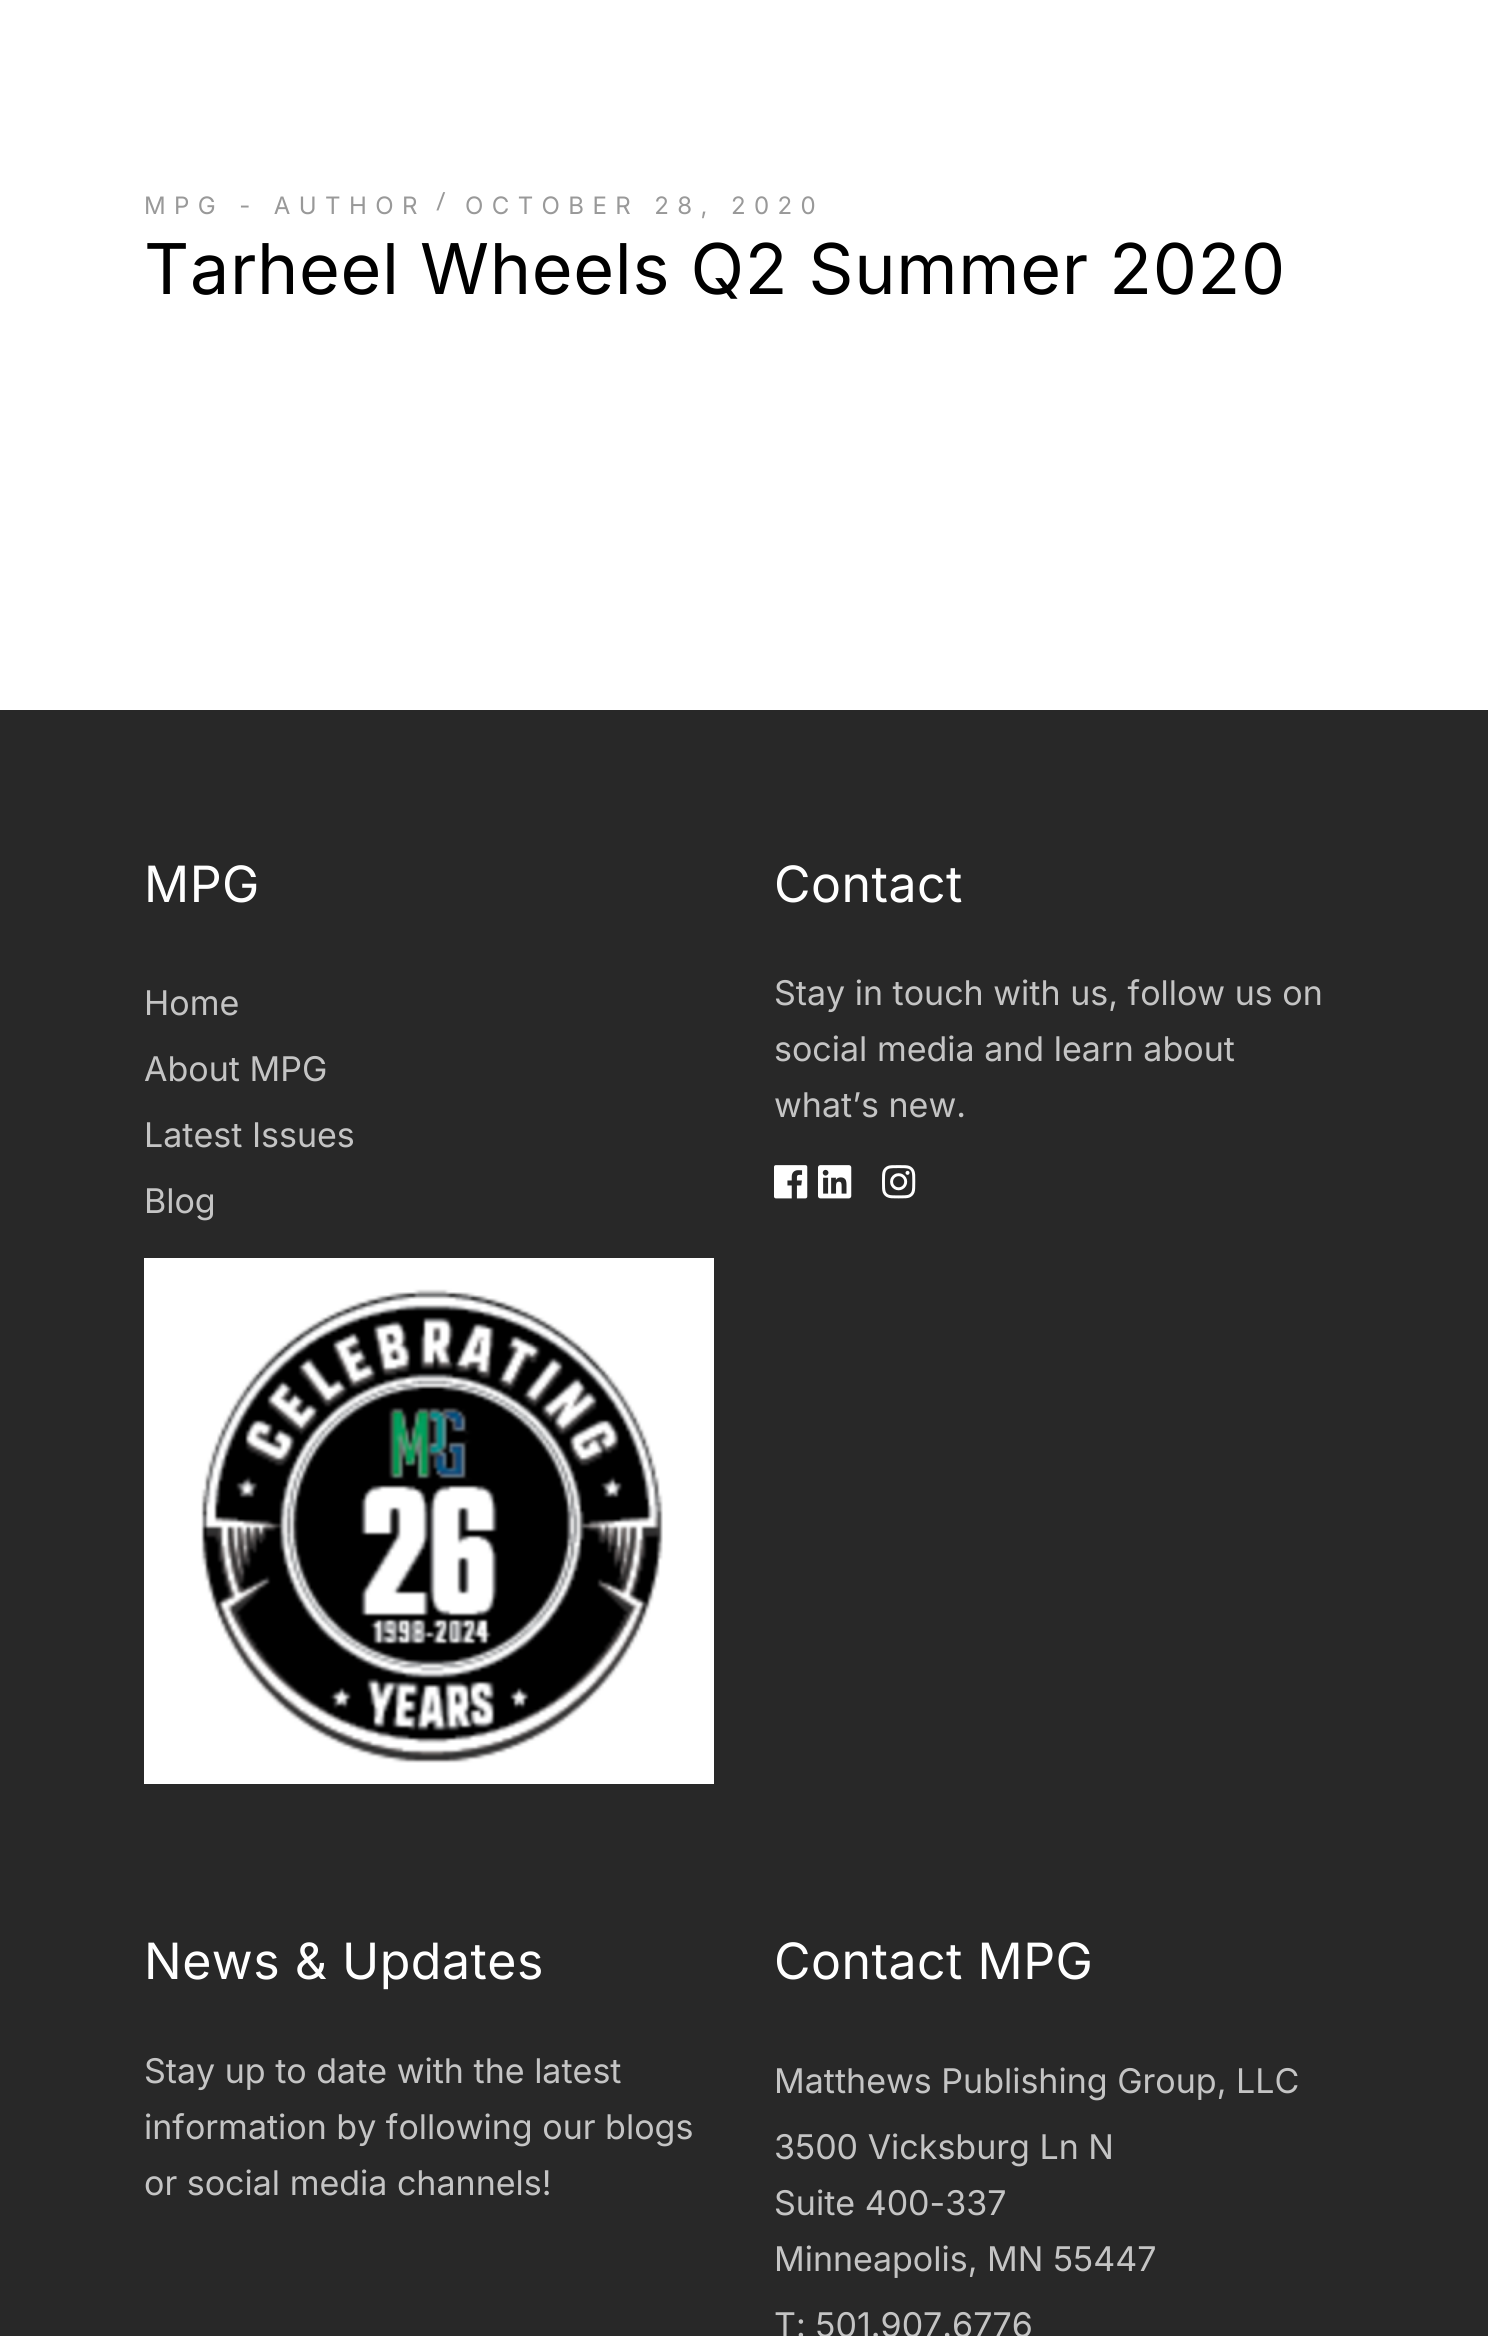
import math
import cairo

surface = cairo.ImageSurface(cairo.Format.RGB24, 1488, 2336)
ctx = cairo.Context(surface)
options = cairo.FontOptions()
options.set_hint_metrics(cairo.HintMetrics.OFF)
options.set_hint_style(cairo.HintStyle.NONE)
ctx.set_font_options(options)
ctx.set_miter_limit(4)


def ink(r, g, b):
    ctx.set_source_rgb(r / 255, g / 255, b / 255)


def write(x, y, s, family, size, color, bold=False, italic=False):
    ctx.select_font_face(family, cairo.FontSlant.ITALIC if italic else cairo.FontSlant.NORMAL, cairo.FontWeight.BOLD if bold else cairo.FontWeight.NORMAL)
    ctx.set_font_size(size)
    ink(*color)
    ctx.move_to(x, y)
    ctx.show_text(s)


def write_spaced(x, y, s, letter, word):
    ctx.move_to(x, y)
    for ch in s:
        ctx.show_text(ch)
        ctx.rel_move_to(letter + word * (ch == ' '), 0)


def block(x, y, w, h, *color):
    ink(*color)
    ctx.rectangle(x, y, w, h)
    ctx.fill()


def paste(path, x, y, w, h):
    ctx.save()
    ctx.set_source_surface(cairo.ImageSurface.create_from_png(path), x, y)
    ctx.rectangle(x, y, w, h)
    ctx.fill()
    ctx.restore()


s1 = dict(family="Inter", size=34, color=(196, 196, 196))

ink(255, 255, 255)
ctx.paint()
ctx.select_font_face("Inter")
ctx.set_font_size(24)
ink(153, 153, 153)
write_spaced(144, 214, "MPG - AUTHOR", 8.4, 0)
ctx.select_font_face("Josefin Sans")
write_spaced(436, 210, "/", 8.4, 0)
ctx.select_font_face("Inter")
write_spaced(465, 214, "OCTOBER 28, 2020", 8.4, 0)
ctx.set_font_size(70)
ink(0, 0, 0)
write_spaced(144, 294, "Tarheel Wheels Q2 Summer 2020", 0.7, 0)
block(0, 710, 1488, 1626, 40, 40, 40)
ctx.set_font_size(50)
ink(255, 255, 255)
write_spaced(144, 902, "MPG", 0.5, 0)
write(144, 1015, "Home", **s1)
write(144, 1081, "About MPG", **s1)
write(144, 1147, "Latest Issues", **s1)
write(144, 1213, "Blog", **s1)
paste("pic1.png", 144, 1258, 570, 526)
ctx.set_font_size(50)
ink(255, 255, 255)
write_spaced(774, 902, "Contact", 0.5, 0)
write(774, 1005, "Stay in touch with us, follow us on", **s1)
write(774, 1061, "social media and learn about", **s1)
write(774, 1117, "what’s new.", **s1)
paste("pic2.png", 774, 1165, 34, 34)
paste("pic3.png", 818, 1165, 34, 34)
paste("pic4.png", 882, 1165, 34, 34)
ctx.set_font_size(50)
ink(255, 255, 255)
write_spaced(144, 1979, "News & Updates", 0.5, 0)
write(144, 2083, "Stay up to date with the latest", **s1)
write(144, 2139, "information by following our blogs", **s1)
write(144, 2195, "or social media channels!", **s1)
ctx.set_font_size(50)
ink(255, 255, 255)
write_spaced(774, 1979, "Contact MPG", 0.5, 0)
write(774, 2093, "Matthews Publishing Group, LLC", **s1)
write(774, 2159, "3500 Vicksburg Ln N", **s1)
write(774, 2215, "Suite 400-337", **s1)
write(774, 2271, "Minneapolis, MN 55447", **s1)
write(774, 2337, "T: 501.907.6776", **s1)
surface.write_to_png("screenshot.png")
